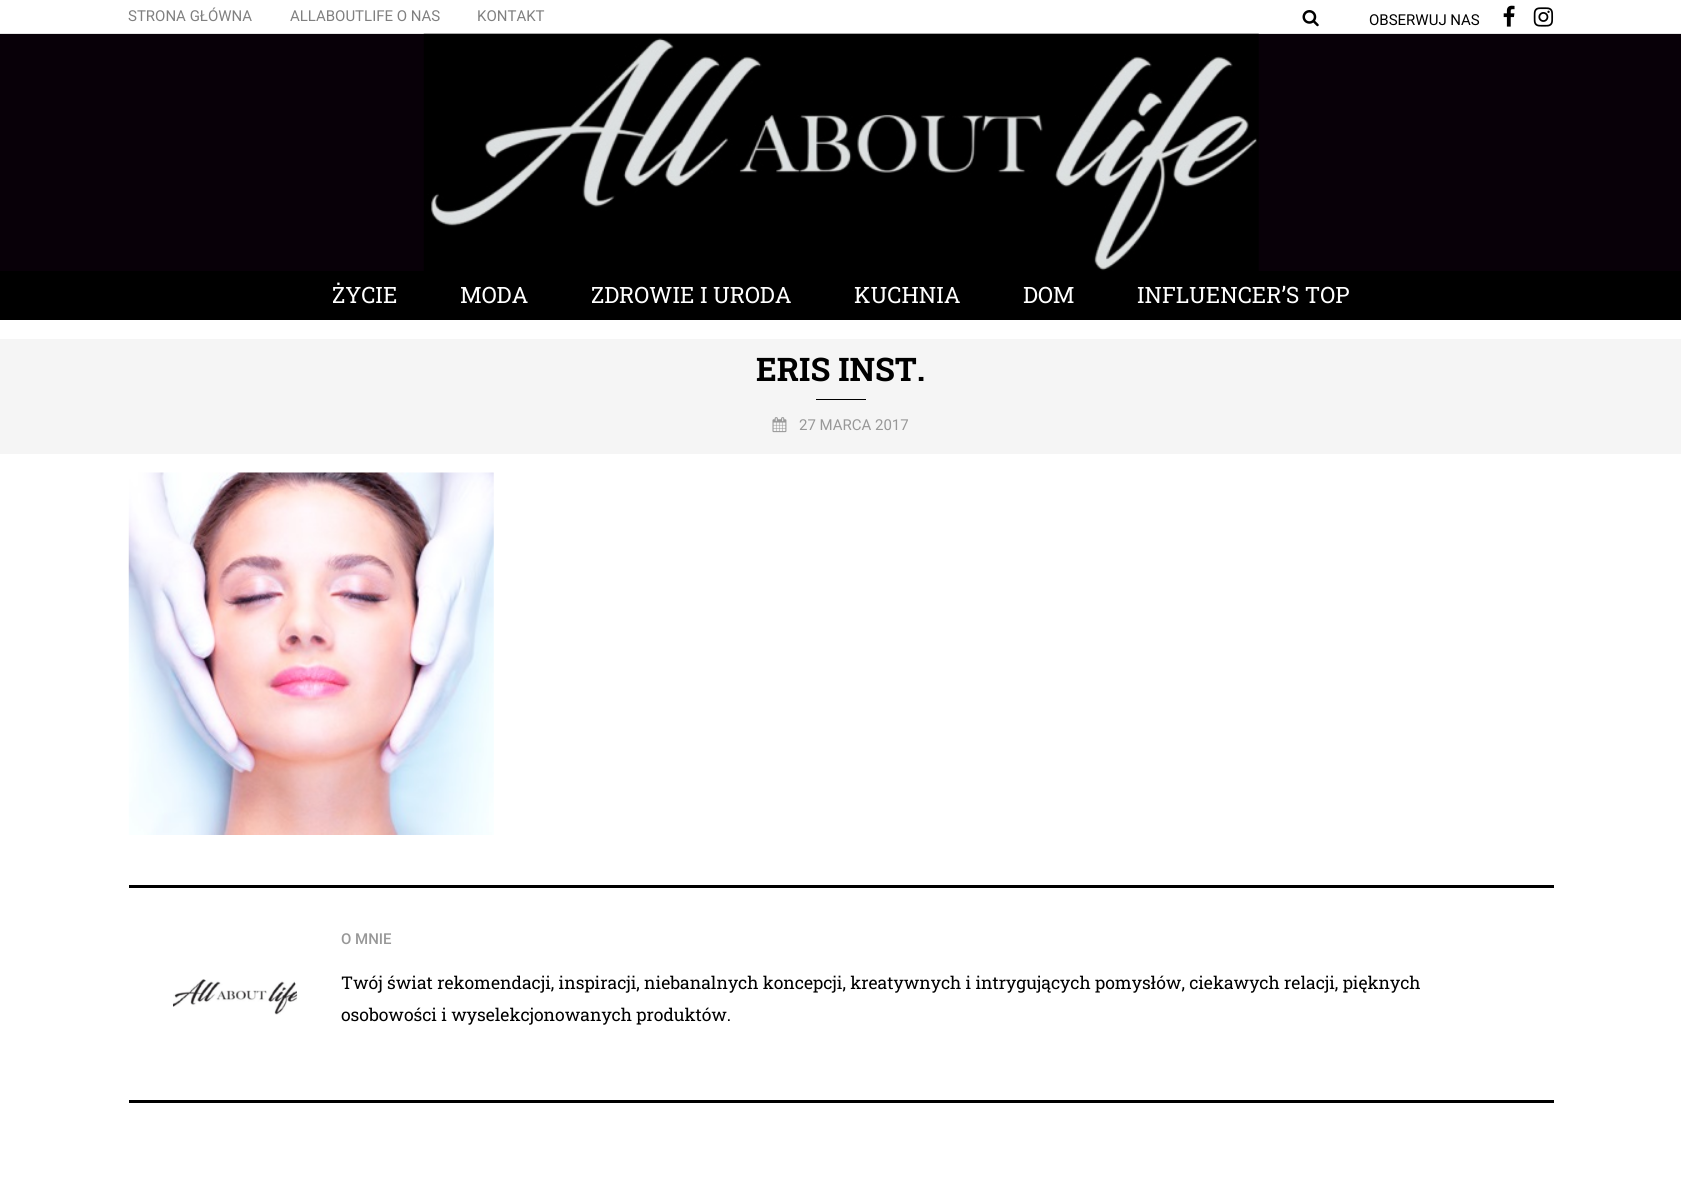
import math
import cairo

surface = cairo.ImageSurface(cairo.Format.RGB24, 1681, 1201)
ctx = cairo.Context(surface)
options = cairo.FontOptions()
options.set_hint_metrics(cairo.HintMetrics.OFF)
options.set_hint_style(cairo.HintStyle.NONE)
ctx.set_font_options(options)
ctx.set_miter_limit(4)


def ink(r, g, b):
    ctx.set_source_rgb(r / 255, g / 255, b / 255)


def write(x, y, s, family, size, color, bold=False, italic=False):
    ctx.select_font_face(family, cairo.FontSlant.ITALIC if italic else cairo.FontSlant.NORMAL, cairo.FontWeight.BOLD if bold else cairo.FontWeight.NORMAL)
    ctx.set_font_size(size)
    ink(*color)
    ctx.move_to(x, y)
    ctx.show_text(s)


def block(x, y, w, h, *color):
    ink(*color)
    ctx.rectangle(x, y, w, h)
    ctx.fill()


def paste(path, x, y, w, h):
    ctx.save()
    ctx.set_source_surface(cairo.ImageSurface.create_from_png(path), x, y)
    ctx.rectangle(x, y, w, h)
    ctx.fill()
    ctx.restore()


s1 = dict(family="Roboto", size=15, color=(128, 128, 128))
s2 = dict(family="Roboto", size=15, color=(0, 0, 0))
s3 = dict(family="Roboto Slab", size=22.5, color=(255, 255, 255))
s4 = dict(family="Roboto Slab", size=32.5, color=(0, 0, 0), bold=True)
s5 = dict(family="Roboto", size=15, color=(152, 152, 152))
s6 = dict(family="Roboto Medium", size=15, color=(152, 152, 152))
s7 = dict(family="Roboto Slab", size=17.5, color=(0, 0, 0))

ink(255, 255, 255)
ctx.paint()
block(0, 33, 1681, 1, 230, 230, 230)
write(128, 21, "STRONA GŁÓWNA", **s1)
write(290, 21, "ALLABOUTLIFE O NAS", **s1)
write(477, 21, "KONTAKT", **s1)
paste("pic1.png", 1302, 10, 17, 17)
write(1369, 25, "OBSERWUJ NAS", **s2)
paste("pic2.png", 1503, 5, 12, 22)
paste("pic3.png", 1533, 7, 21, 20)
block(0, 34, 1681, 237, 8, 0, 8)
paste("pic4.png", 423, 33, 836, 238)
block(0, 271, 1681, 49, 0, 0, 0)
write(332, 303, "ŻYCIE", **s3)
write(460, 303, "MODA", **s3)
write(591, 303, "ZDROWIE I URODA", **s3)
write(854, 303, "KUCHNIA", **s3)
write(1023, 303, "DOM", **s3)
write(1137, 303, "INFLUENCER’S TOP", **s3)
block(0, 339, 1681, 115, 245, 245, 245)
write(756, 381, "ERIS INST.", **s4)
block(816, 399, 50, 1, 0, 0, 0)
paste("pic5.png", 772, 417, 15, 16)
write(799, 430, "27 MARCA 2017", **s5)
paste("pic6.png", 128, 472, 366, 363)
block(129, 885, 1425, 3, 0, 0, 0)
block(129, 1100, 1425, 3, 0, 0, 0)
paste("pic7.png", 172, 979, 126, 36)
write(341, 944, "O MNIE", **s6)
write(341, 989, "Twój świat rekomendacji, inspiracji, niebanalnych koncepcji, kreatywnych i intrygujących pomysłów, ciekawych relacji, pięknych", **s7)
write(341, 1021, "osobowości i wyselekcjonowanych produktów.", **s7)
surface.write_to_png("screenshot.png")
